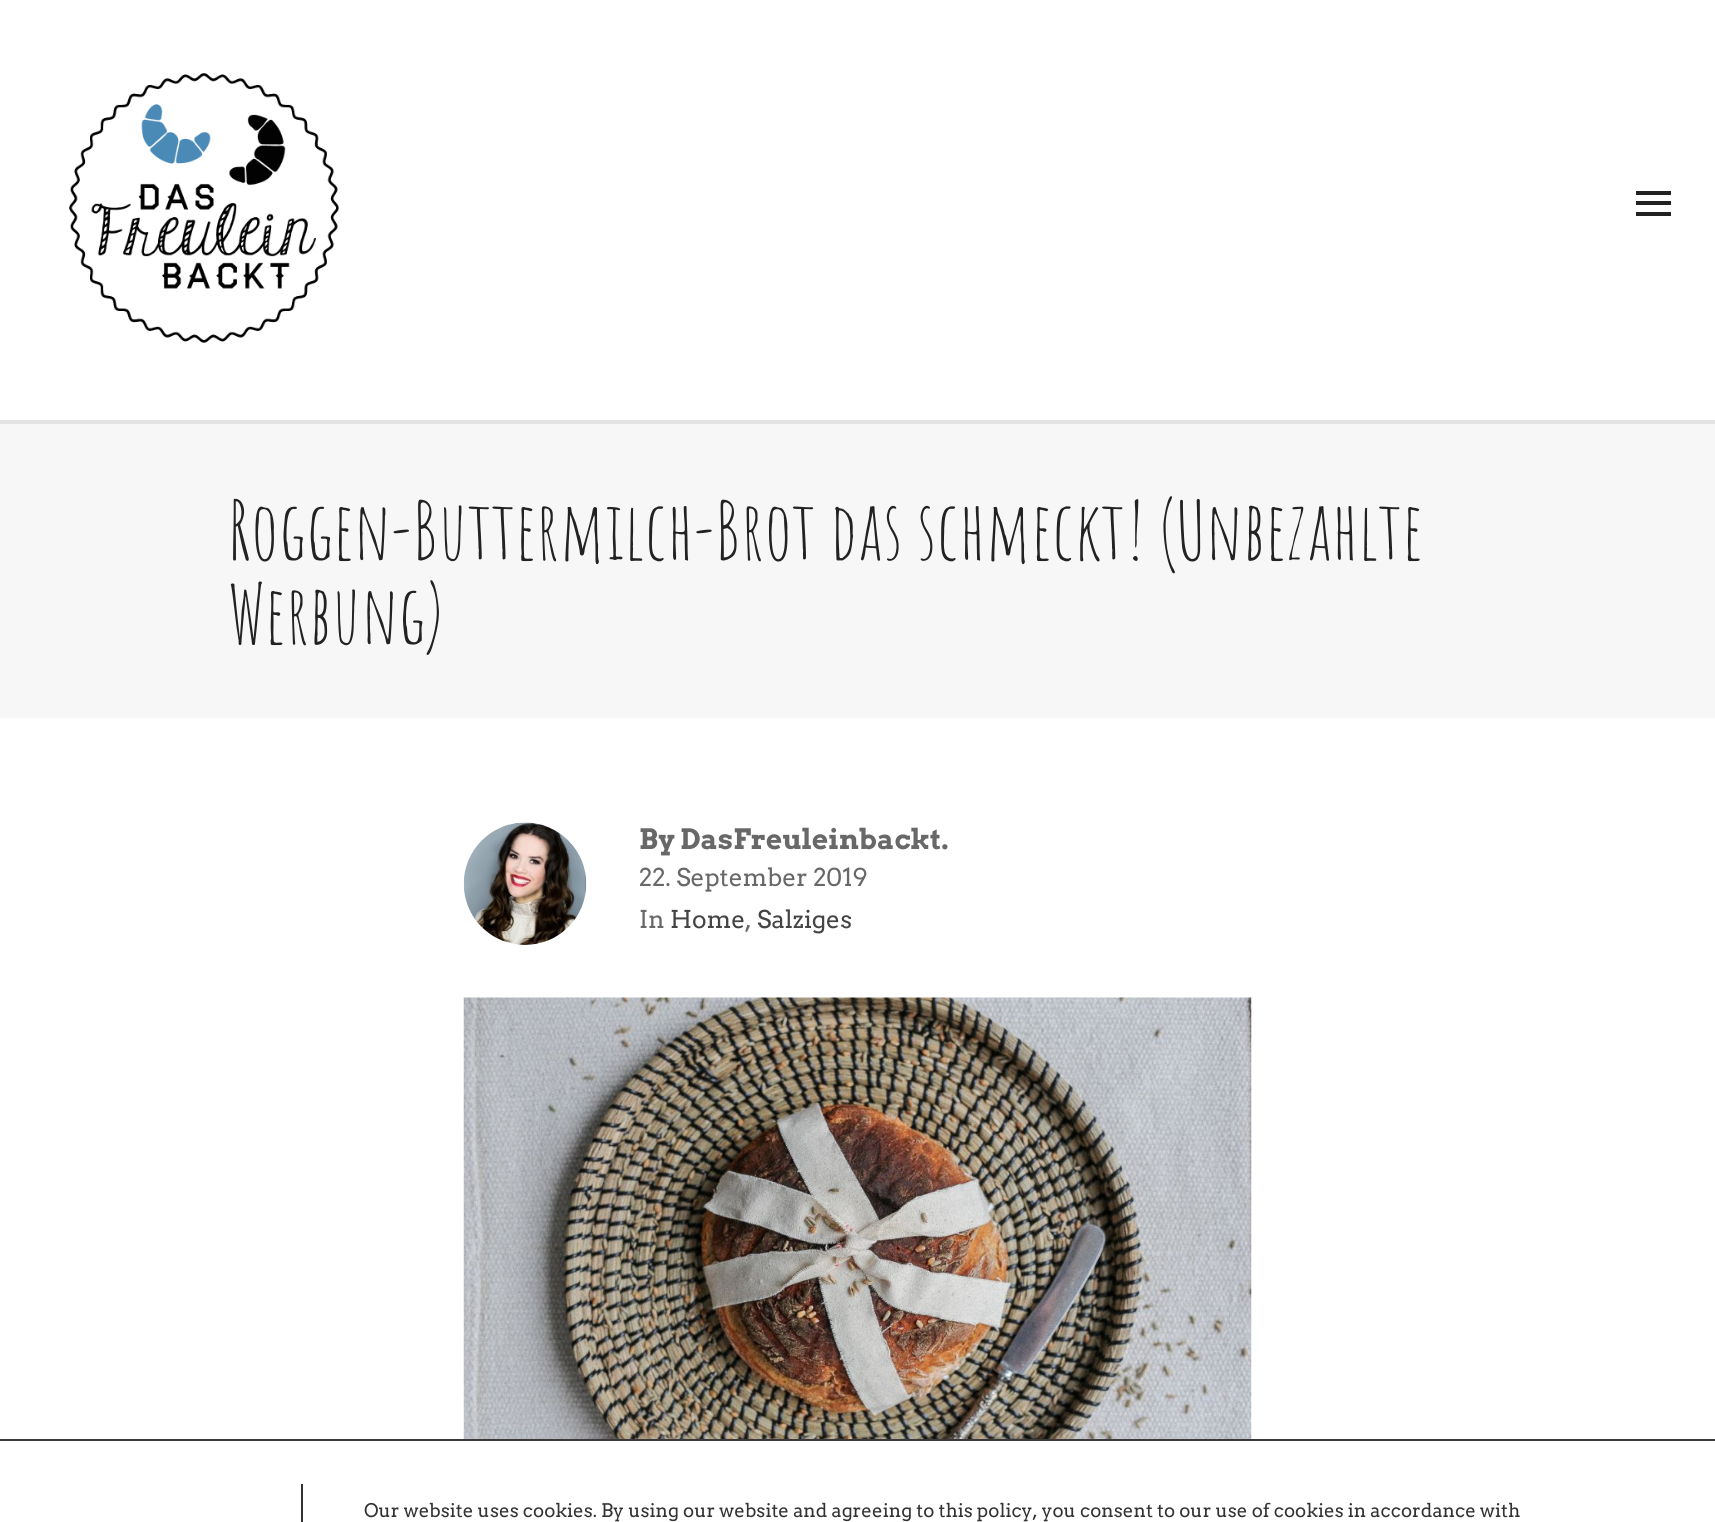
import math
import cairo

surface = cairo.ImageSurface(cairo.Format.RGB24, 1715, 1522)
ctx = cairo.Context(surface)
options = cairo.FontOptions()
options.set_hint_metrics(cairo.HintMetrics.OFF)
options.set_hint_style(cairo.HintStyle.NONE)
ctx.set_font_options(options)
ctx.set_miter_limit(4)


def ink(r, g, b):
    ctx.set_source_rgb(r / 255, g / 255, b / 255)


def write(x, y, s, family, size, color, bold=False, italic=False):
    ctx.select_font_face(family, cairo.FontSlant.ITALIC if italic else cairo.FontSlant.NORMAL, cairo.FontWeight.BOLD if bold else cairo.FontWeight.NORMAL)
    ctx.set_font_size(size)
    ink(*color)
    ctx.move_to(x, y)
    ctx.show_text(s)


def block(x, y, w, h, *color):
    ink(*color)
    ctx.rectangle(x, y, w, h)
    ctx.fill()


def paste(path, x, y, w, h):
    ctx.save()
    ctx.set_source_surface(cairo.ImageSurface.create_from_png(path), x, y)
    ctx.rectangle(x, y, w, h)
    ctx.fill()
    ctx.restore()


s1 = dict(family="Amatic SC", size=80.5, color=(34, 34, 34))
s2 = dict(family="Arvo", size=28, color=(104, 104, 104), bold=True)
s3 = dict(family="Arvo", size=24.5, color=(104, 104, 104))
s4 = dict(family="Arvo", size=24.5, color=(68, 68, 68))
s5 = dict(family="Arvo", size=18.67, color=(51, 51, 51))

ink(255, 255, 255)
ctx.paint()
block(0, 420, 1715, 4, 228, 228, 228)
paste("pic1.png", 69, 73, 271, 270)
block(1636, 201, 35, 4, 34, 34, 34)
block(1636, 191, 35, 4, 34, 34, 34)
block(1636, 212, 35, 4, 34, 34, 34)
block(0, 424, 1715, 294, 247, 247, 247)
write(228, 560, "Roggen-Buttermilch-Brot das schmeckt! (Unbezahlte", **s1)
write(228, 644, "Werbung)", **s1)
paste("pic2.png", 463, 822, 124, 123)
write(639, 849, "By DasFreuleinbackt.", **s2)
write(639, 886, "22. September 2019", **s3)
write(639, 928, "In", **s3)
write(670, 928, "Home", **s4)
write(745, 928, ",", **s3)
write(757, 928, "Salziges", **s4)
paste("pic3.png", 463, 997, 789, 442)
block(0, 1439, 1715, 2, 59, 57, 57)
block(301, 1484, 2, 38, 51, 51, 51)
write(364, 1517, "Our website uses cookies. By using our website and agreeing to this policy, you consent to our use of cookies in accordance with", **s5)
surface.write_to_png("screenshot.png")
